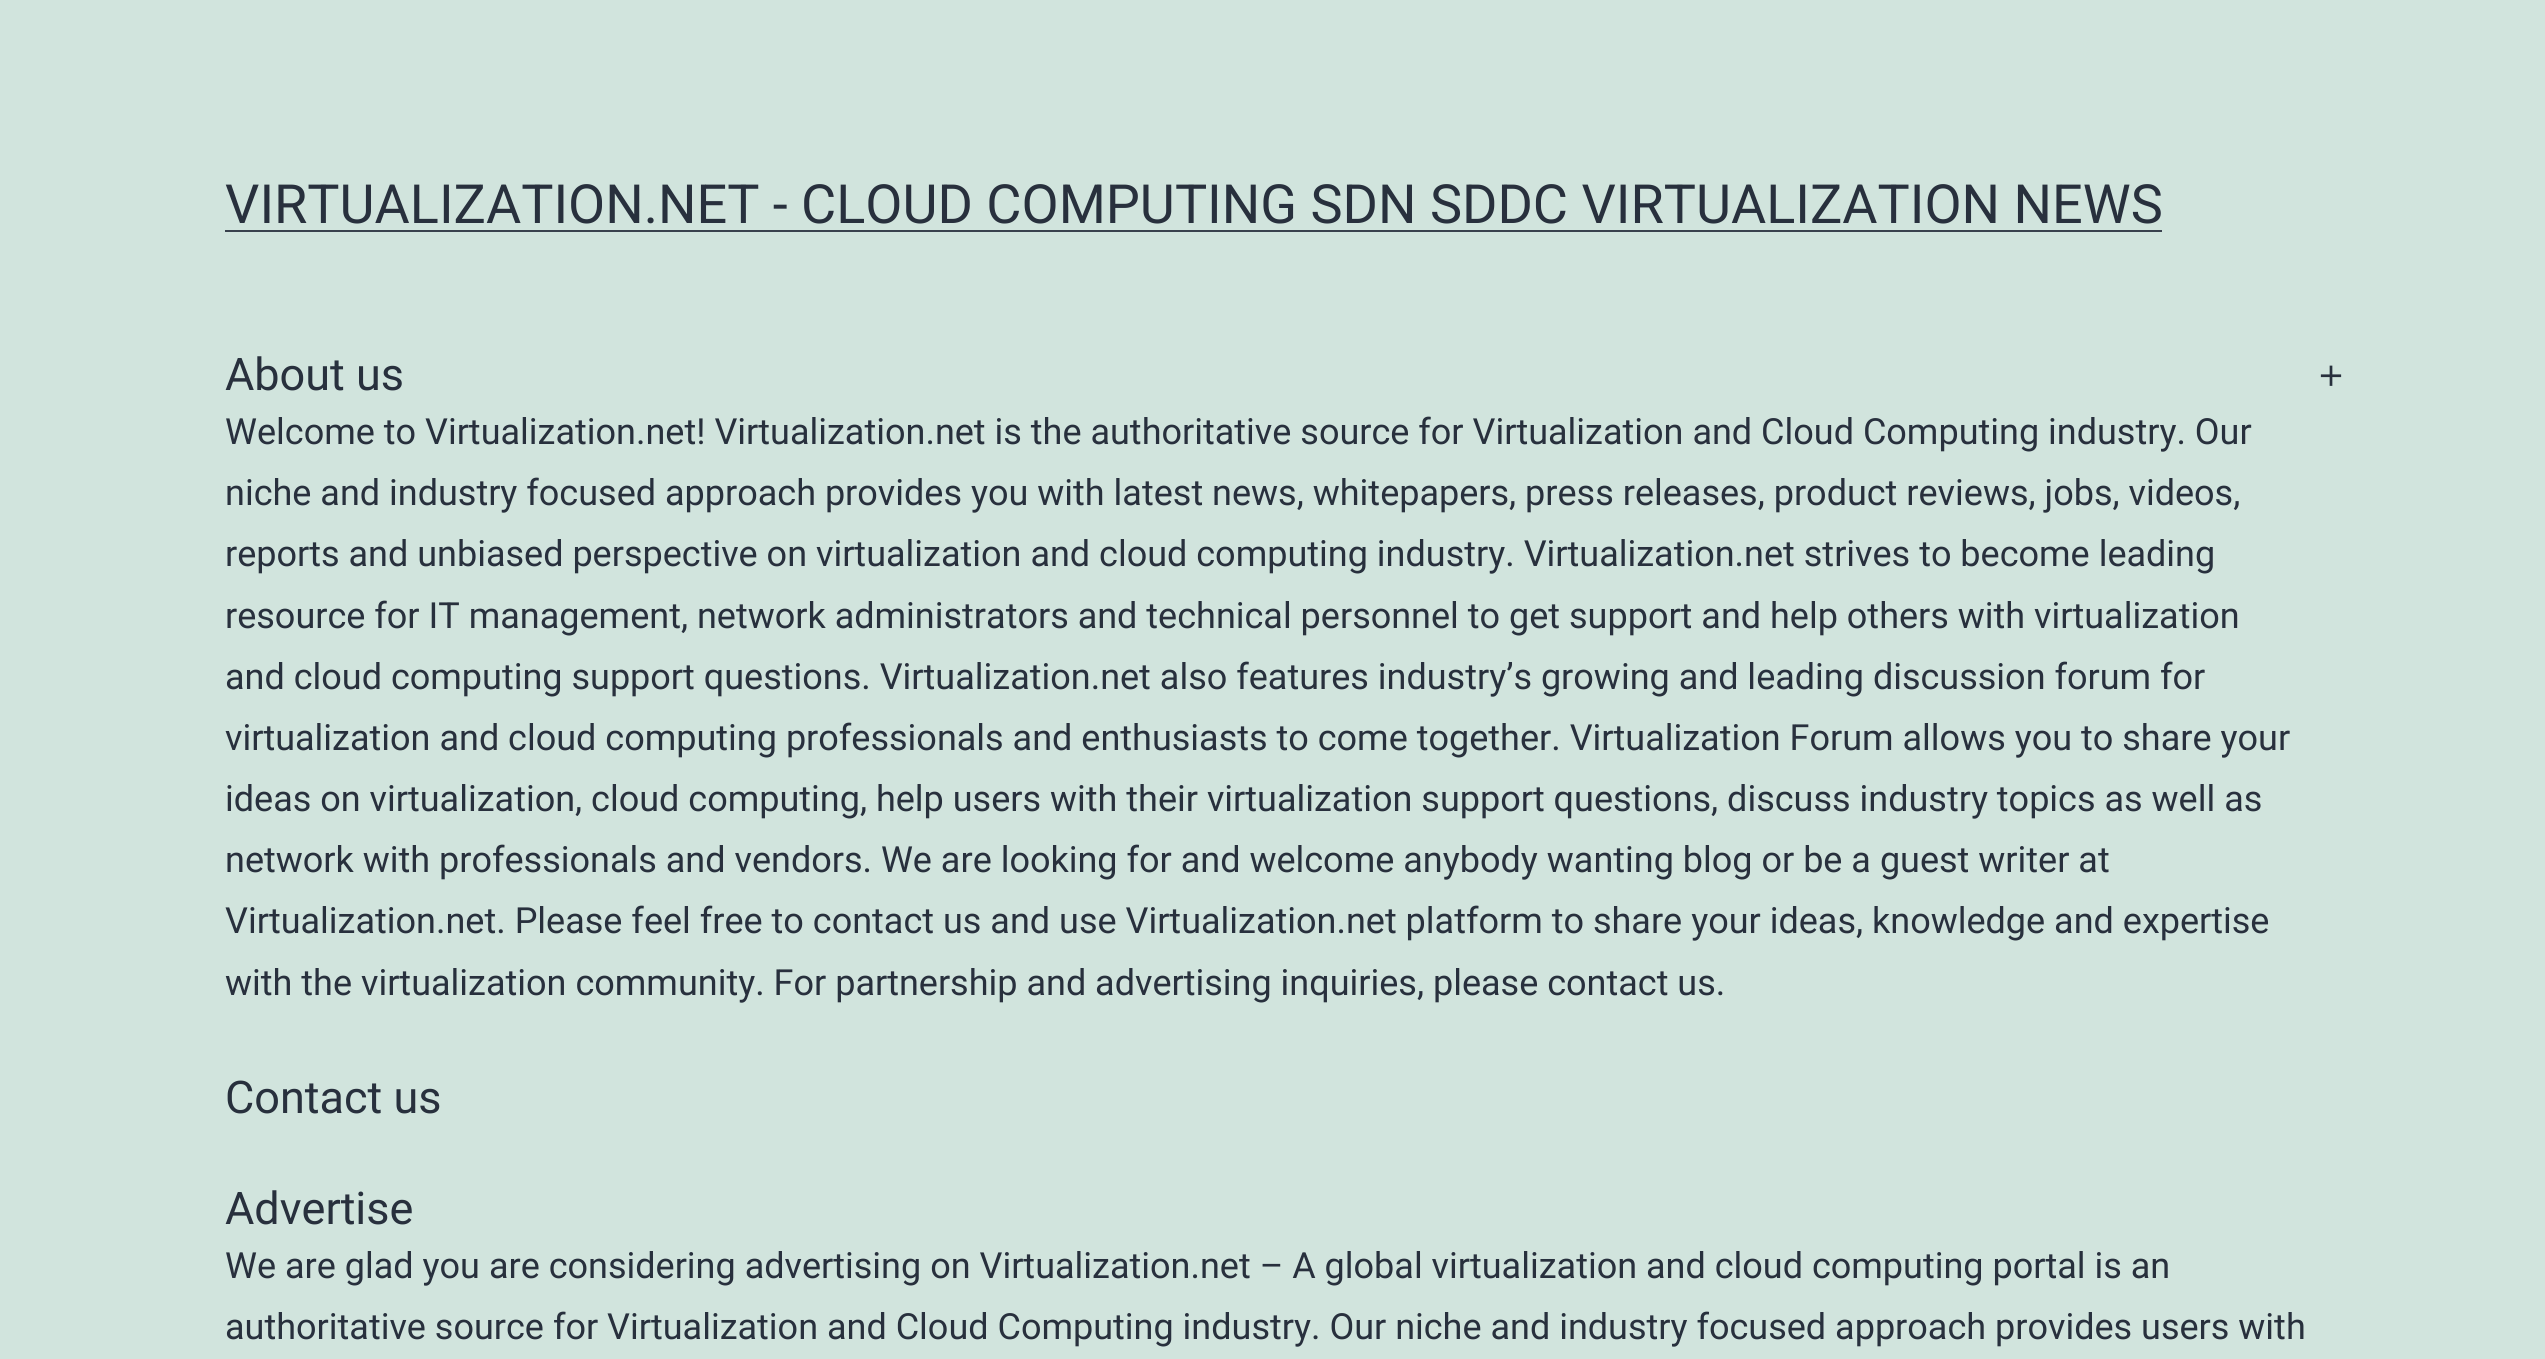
import math
import cairo

surface = cairo.ImageSurface(cairo.Format.RGB24, 2545, 1359)
ctx = cairo.Context(surface)
options = cairo.FontOptions()
options.set_hint_metrics(cairo.HintMetrics.OFF)
options.set_hint_style(cairo.HintStyle.NONE)
ctx.set_font_options(options)
ctx.set_miter_limit(4)


def ink(r, g, b):
    ctx.set_source_rgb(r / 255, g / 255, b / 255)


def write(x, y, s, family, size, color, bold=False, italic=False):
    ctx.select_font_face(family, cairo.FontSlant.ITALIC if italic else cairo.FontSlant.NORMAL, cairo.FontWeight.BOLD if bold else cairo.FontWeight.NORMAL)
    ctx.set_font_size(size)
    ink(*color)
    ctx.move_to(x, y)
    ctx.show_text(s)


def block(x, y, w, h, *color):
    ink(*color)
    ctx.rectangle(x, y, w, h)
    ctx.fill()


def paste(path, x, y, w, h):
    ctx.save()
    ctx.set_source_surface(cairo.ImageSurface.create_from_png(path), x, y)
    ctx.rectangle(x, y, w, h)
    ctx.fill()
    ctx.restore()


s1 = dict(family="Roboto", size=54, color=(40, 48, 61))
s2 = dict(family="Roboto", size=45, color=(40, 48, 61))
s3 = dict(family="Roboto", size=36, color=(40, 48, 61))

ink(209, 228, 221)
ctx.paint()
write(225, 223, "VIRTUALIZATION.NET - CLOUD COMPUTING SDN SDDC VIRTUALIZATION NEWS", **s1)
block(225, 230, 1937, 2, 57, 65, 77)
write(225, 390, "About us", **s2)
write(225, 444, "Welcome to Virtualization.net! Virtualization.net is the authoritative source for Virtualization and Cloud Computing industry. Our", **s3)
write(225, 505, "niche and industry focused approach provides you with latest news, whitepapers, press releases, product reviews, jobs, videos,", **s3)
write(225, 566, "reports and unbiased perspective on virtualization and cloud computing industry. Virtualization.net strives to become leading", **s3)
write(225, 628, "resource for IT management, network administrators and technical personnel to get support and help others with virtualization", **s3)
write(225, 689, "and cloud computing support questions. Virtualization.net also features industry’s growing and leading discussion forum for", **s3)
write(225, 750, "virtualization and cloud computing professionals and enthusiasts to come together. Virtualization Forum allows you to share your", **s3)
write(225, 811, "ideas on virtualization, cloud computing, help users with their virtualization support questions, discuss industry topics as well as", **s3)
write(225, 872, "network with professionals and vendors. We are looking for and welcome anybody wanting blog or be a guest writer at", **s3)
write(225, 933, "Virtualization.net. Please feel free to contact us and use Virtualization.net platform to share your ideas, knowledge and expertise", **s3)
write(225, 995, "with the virtualization community. For partnership and advertising inquiries, please contact us.", **s3)
paste("pic1.png", 2320, 365, 22, 21)
write(225, 1113, "Contact us", **s2)
write(225, 1224, "Advertise", **s2)
write(225, 1278, "We are glad you are considering advertising on Virtualization.net – A global virtualization and cloud computing portal is an", **s3)
write(225, 1339, "authoritative source for Virtualization and Cloud Computing industry. Our niche and industry focused approach provides users with", **s3)
surface.write_to_png("screenshot.png")
